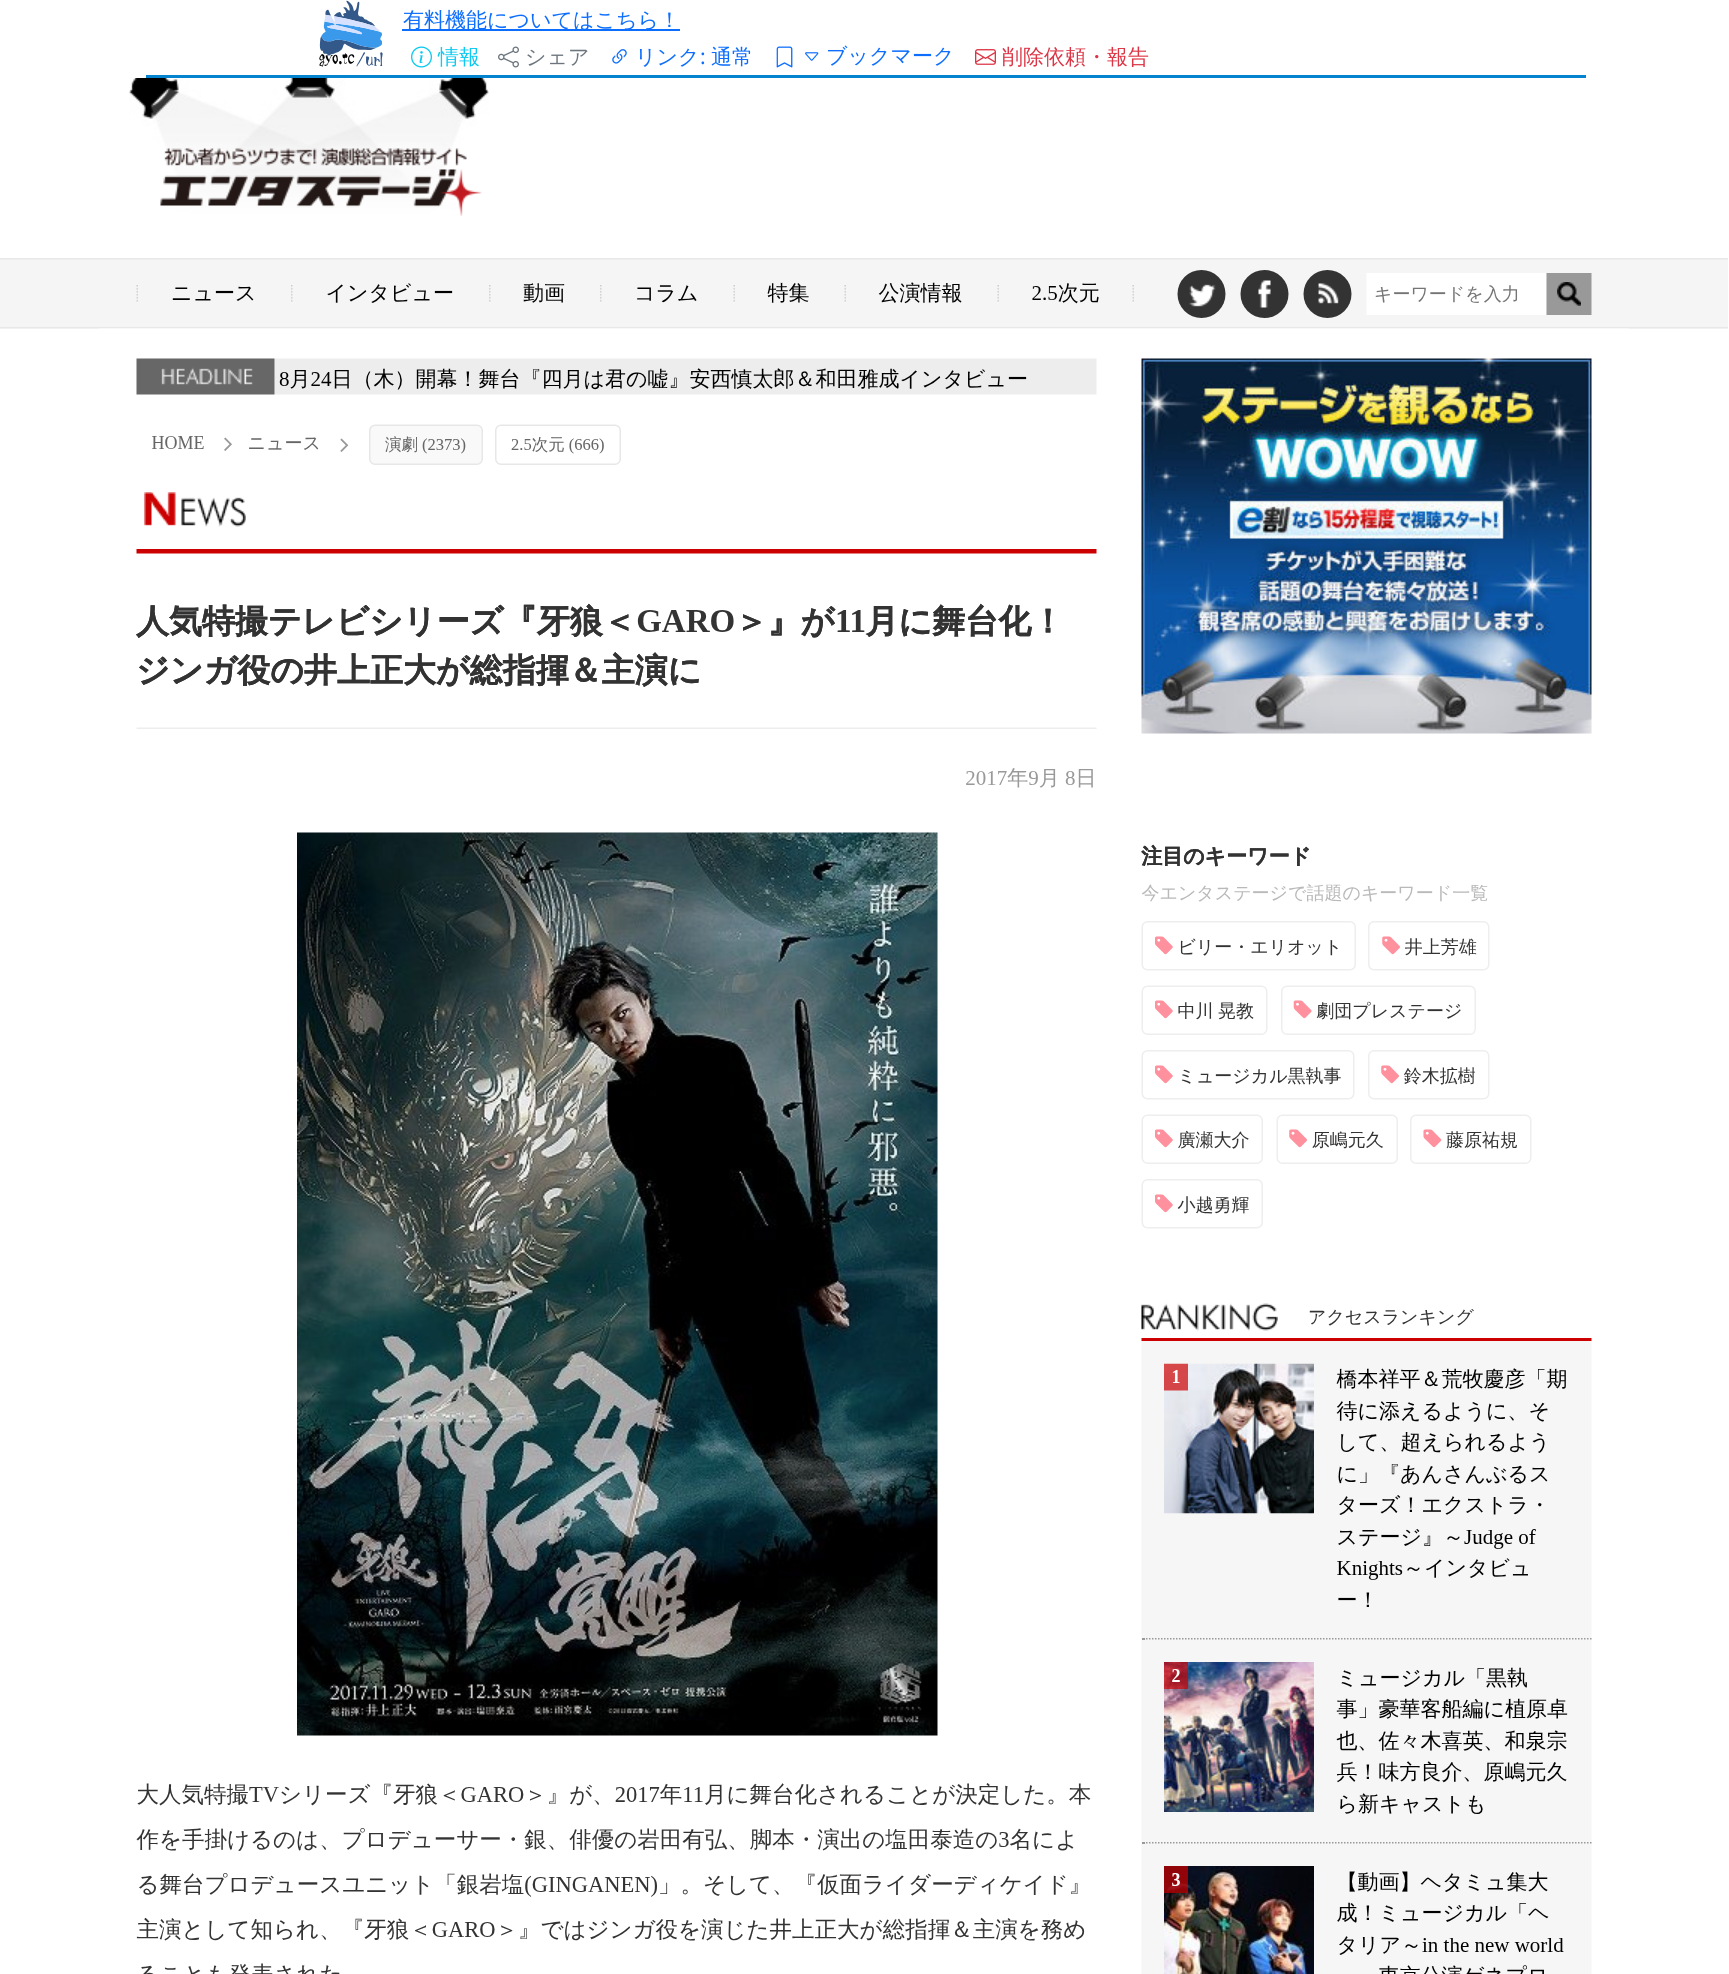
import math
import cairo

surface = cairo.ImageSurface(cairo.Format.RGB24, 1729, 1974)
ctx = cairo.Context(surface)
options = cairo.FontOptions()
options.set_hint_metrics(cairo.HintMetrics.OFF)
options.set_hint_style(cairo.HintStyle.NONE)
ctx.set_font_options(options)
ctx.set_miter_limit(4)


def ink(r, g, b):
    ctx.set_source_rgb(r / 255, g / 255, b / 255)


def write(x, y, s, family, size, color, bold=False, italic=False):
    ctx.select_font_face(family, cairo.FontSlant.ITALIC if italic else cairo.FontSlant.NORMAL, cairo.FontWeight.BOLD if bold else cairo.FontWeight.NORMAL)
    ctx.set_font_size(size)
    ink(*color)
    ctx.move_to(x, y)
    ctx.show_text(s)


def block(x, y, w, h, *color):
    ink(*color)
    ctx.rectangle(x, y, w, h)
    ctx.fill()


def paste(path, x, y, w, h):
    ctx.save()
    ctx.set_source_surface(cairo.ImageSurface.create_from_png(path), x, y)
    ctx.rectangle(x, y, w, h)
    ctx.fill()
    ctx.restore()


s1 = dict(family="WenQuanYi Zen Hei Medium", size=21, color=(13, 110, 253))
s2 = dict(family="WenQuanYi Zen Hei Medium", size=21, color=(13, 202, 240))
s3 = dict(family="WenQuanYi Zen Hei Medium", size=21, color=(108, 117, 125))
s4 = dict(family="Noto Sans", size=21, color=(13, 110, 253))
s5 = dict(family="WenQuanYi Zen Hei Medium", size=21, color=(220, 53, 69))

ink(255, 255, 255)
ctx.paint()
block(146, 75, 1440, 3, 4, 132, 206)
paste("pic1.png", 319, 0, 64, 67)
block(402, 29, 278, 2, 13, 110, 253)
write(403, 27, "有料機能についてはこちら！", **s1)
paste("pic2.png", 411, 46, 21, 22)
write(438, 64, "情報", **s2)
paste("pic3.png", 498, 46, 21, 22)
write(525, 64, "シェア", **s3)
paste("pic4.png", 612, 49, 15, 15)
write(635, 64, "リンク", **s1)
write(700, 64, ":", **s4)
write(711, 64, "通常", **s1)
paste("pic5.png", 776, 46, 17, 22)
paste("pic6.png", 805, 52, 14, 9)
write(826, 63, "ブックマーク", **s1)
paste("pic7.png", 975, 49, 21, 16)
write(1002, 64, "削除依頼・報告", **s5)
paste("pic8.png", 0, 78, 1728, 1896)
surface.write_to_png("screenshot.png")
